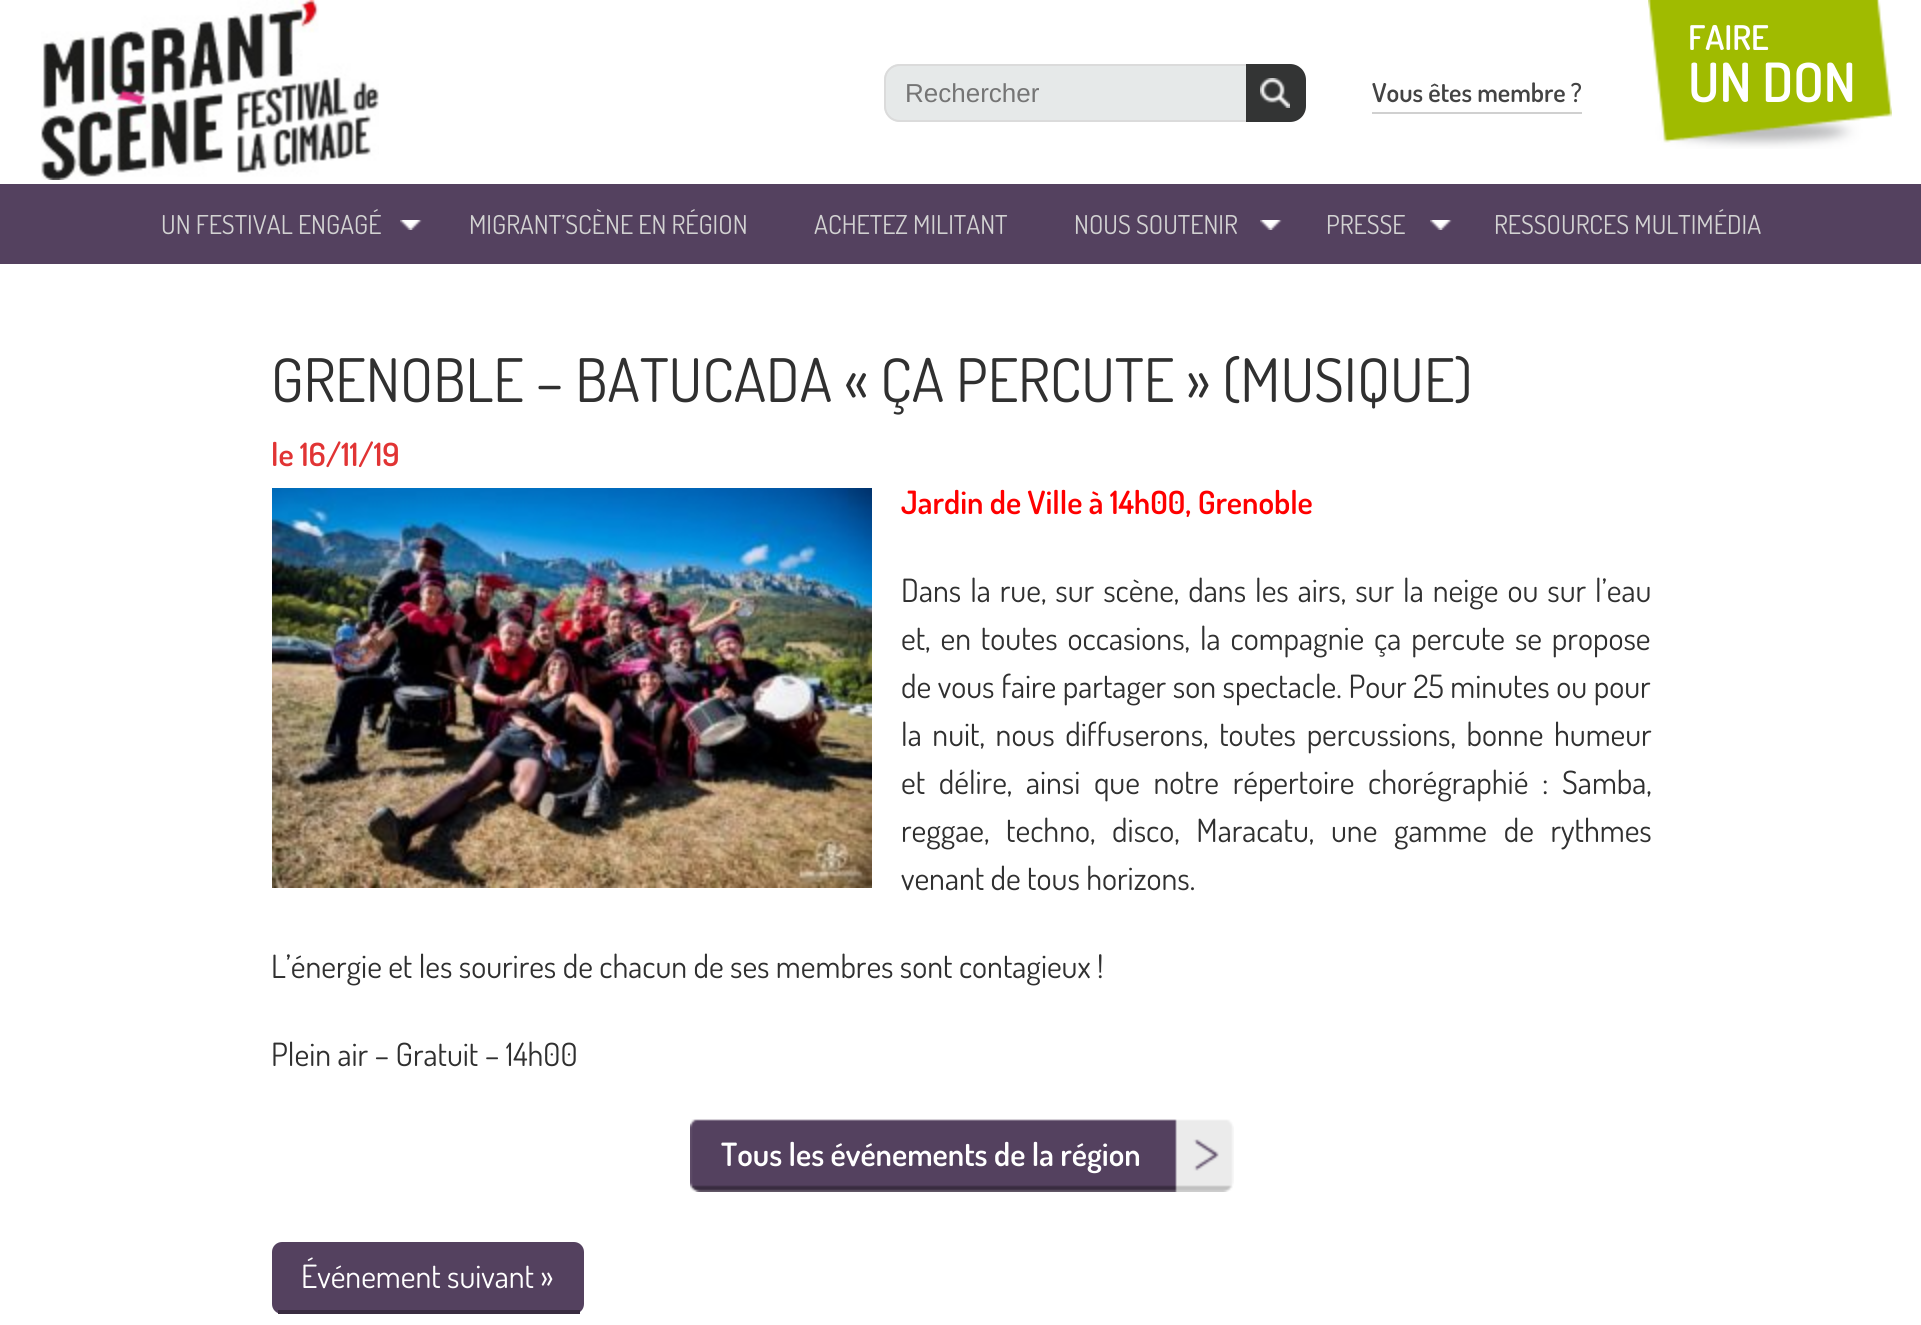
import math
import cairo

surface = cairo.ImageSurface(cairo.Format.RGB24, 1921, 1325)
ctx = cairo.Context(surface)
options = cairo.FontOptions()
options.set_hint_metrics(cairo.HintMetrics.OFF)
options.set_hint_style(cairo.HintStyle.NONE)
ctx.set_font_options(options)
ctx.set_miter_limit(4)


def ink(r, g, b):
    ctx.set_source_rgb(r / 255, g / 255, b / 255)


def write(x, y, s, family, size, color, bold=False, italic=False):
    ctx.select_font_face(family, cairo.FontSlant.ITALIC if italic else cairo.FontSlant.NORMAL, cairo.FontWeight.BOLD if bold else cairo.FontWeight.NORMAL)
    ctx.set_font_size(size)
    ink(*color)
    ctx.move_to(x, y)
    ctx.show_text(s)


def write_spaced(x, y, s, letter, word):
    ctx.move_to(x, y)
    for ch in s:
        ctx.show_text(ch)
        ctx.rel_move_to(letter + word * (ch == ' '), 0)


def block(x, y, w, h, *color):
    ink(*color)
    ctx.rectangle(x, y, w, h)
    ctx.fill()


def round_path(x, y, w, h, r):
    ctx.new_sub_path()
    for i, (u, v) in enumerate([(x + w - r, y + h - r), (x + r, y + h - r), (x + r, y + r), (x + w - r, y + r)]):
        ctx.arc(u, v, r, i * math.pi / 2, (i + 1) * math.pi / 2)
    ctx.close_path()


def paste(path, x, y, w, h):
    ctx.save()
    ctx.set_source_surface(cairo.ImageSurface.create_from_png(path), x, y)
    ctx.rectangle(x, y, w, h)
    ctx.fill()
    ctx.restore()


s1 = dict(family="Liberation Sans", size=26, color=(117, 117, 117))
s2 = dict(family="Dosis SemiBold", size=26, color=(68, 68, 68))
s3 = dict(family="Dosis SemiBold", size=34, color=(255, 255, 255))
s4 = dict(family="Dosis SemiBold", size=54, color=(255, 255, 255))
s5 = dict(family="Dosis", size=26, color=(210, 210, 210))
s6 = dict(family="Dosis", size=60, color=(48, 48, 48))
s7 = dict(family="Dosis SemiBold", size=32, color=(225, 52, 52))
s8 = dict(family="Dosis SemiBold", size=32, color=(255, 0, 0))
s9 = dict(family="Dosis", size=32, color=(48, 48, 48))
s10 = dict(family="Dosis SemiBold", size=32, color=(255, 255, 255))
s11 = dict(family="Dosis", size=32, color=(255, 255, 255))

ink(255, 255, 255)
ctx.paint()
paste("pic1.png", 41, 0, 338, 180)
ink(230, 233, 233)
ctx.new_path()
ctx.move_to(900, 64)
ctx.line_to(1246, 64)
ctx.line_to(1246, 122)
ctx.line_to(900, 122)
ctx.curve_to(891, 122, 884, 115, 884, 106)
ctx.line_to(884, 80)
ctx.curve_to(884, 71, 891, 64, 900, 64)
ctx.close_path()
ctx.fill()
ink(219, 219, 219)
ctx.set_fill_rule(cairo.FillRule.EVEN_ODD)
ctx.new_path()
ctx.move_to(900, 64)
ctx.line_to(1246, 64)
ctx.line_to(1246, 122)
ctx.line_to(900, 122)
ctx.curve_to(891, 122, 884, 115, 884, 106)
ctx.line_to(884, 80)
ctx.curve_to(884, 71, 891, 64, 900, 64)
ctx.close_path()
ctx.move_to(900, 66)
ctx.line_to(1246, 66)
ctx.line_to(1246, 120)
ctx.line_to(900, 120)
ctx.curve_to(892, 120, 886, 114, 886, 106)
ctx.line_to(886, 80)
ctx.curve_to(886, 72, 892, 66, 900, 66)
ctx.close_path()
ctx.fill()
write(905, 102, "Rechercher", **s1)
ink(51, 52, 52)
ctx.new_path()
ctx.move_to(1246, 64)
ctx.line_to(1290, 64)
ctx.curve_to(1299, 64, 1306, 71, 1306, 80)
ctx.line_to(1306, 106)
ctx.curve_to(1306, 115, 1299, 122, 1290, 122)
ctx.line_to(1246, 122)
ctx.close_path()
ctx.fill()
paste("pic2.png", 1260, 78, 30, 30)
block(1372, 112, 210, 2, 208, 208, 208)
write(1372, 102, "Vous êtes membre ?", **s2)
paste("pic3.png", 1648, 0, 244, 149)
write(1688, 50, "FAIRE", **s3)
write(1688, 102, "UN DON", **s4)
block(0, 184, 1921, 80, 84, 65, 95)
paste("pic4.png", 400, 220, 22, 10)
write(161, 234, "UN FESTIVAL ENGAGÉ", **s5)
write(469, 234, "MIGRANT’SCÈNE EN RÉGION", **s5)
write(814, 234, "ACHETEZ MILITANT", **s5)
paste("pic4.png", 1260, 220, 22, 10)
write(1074, 234, "NOUS SOUTENIR", **s5)
paste("pic4.png", 1430, 220, 22, 10)
write(1326, 234, "PRESSE", **s5)
write(1494, 234, "RESSOURCES MULTIMÉDIA", **s5)
write(271, 402, "GRENOBLE – BATUCADA « ÇA PERCUTE » (MUSIQUE)", **s6)
write(271, 466, "le 16/11/19", **s7)
paste("pic5.png", 272, 488, 600, 400)
write(901, 514, "Jardin de Ville à 14h00, Grenoble", **s8)
ctx.select_font_face("Dosis")
ink(48, 48, 48)
write_spaced(901, 602, "Dans la rue, sur scène, dans les airs, sur la neige ou sur l’eau", 0, 2.6)
write_spaced(901, 650, "et, en toutes occasions, la compagnie ça percute se propose", 0, 3.5)
write_spaced(901, 698, "de vous faire partager son spectacle. Pour 25 minutes ou pour", 0, 0.25)
write_spaced(901, 746, "la nuit, nous diffuserons, toutes percussions, bonne humeur", 0, 4.25)
write_spaced(901, 794, "et délire, ainsi que notre répertoire chorégraphié : Samba,", 0, 7.25)
write_spaced(901, 842, "reggae, techno, disco, Maracatu, une gamme de rythmes", 0, 10.25)
write(901, 890, "venant de tous horizons.", **s9)
write(271, 978, "L’énergie et les sourires de chacun de ses membres sont contagieux !", **s9)
write(271, 1066, "Plein air – Gratuit – 14h00", **s9)
paste("pic6.png", 690, 1119, 544, 73)
write(721, 1166, "Tous les événements de la région", **s10)
ink(84, 65, 95)
round_path(272, 1242, 312, 72, 10)
ctx.fill()
block(278, 1310, 302, 4, 57, 44, 64)
write(301, 1288, "Événement suivant »", **s11)
surface.write_to_png("screenshot.png")
